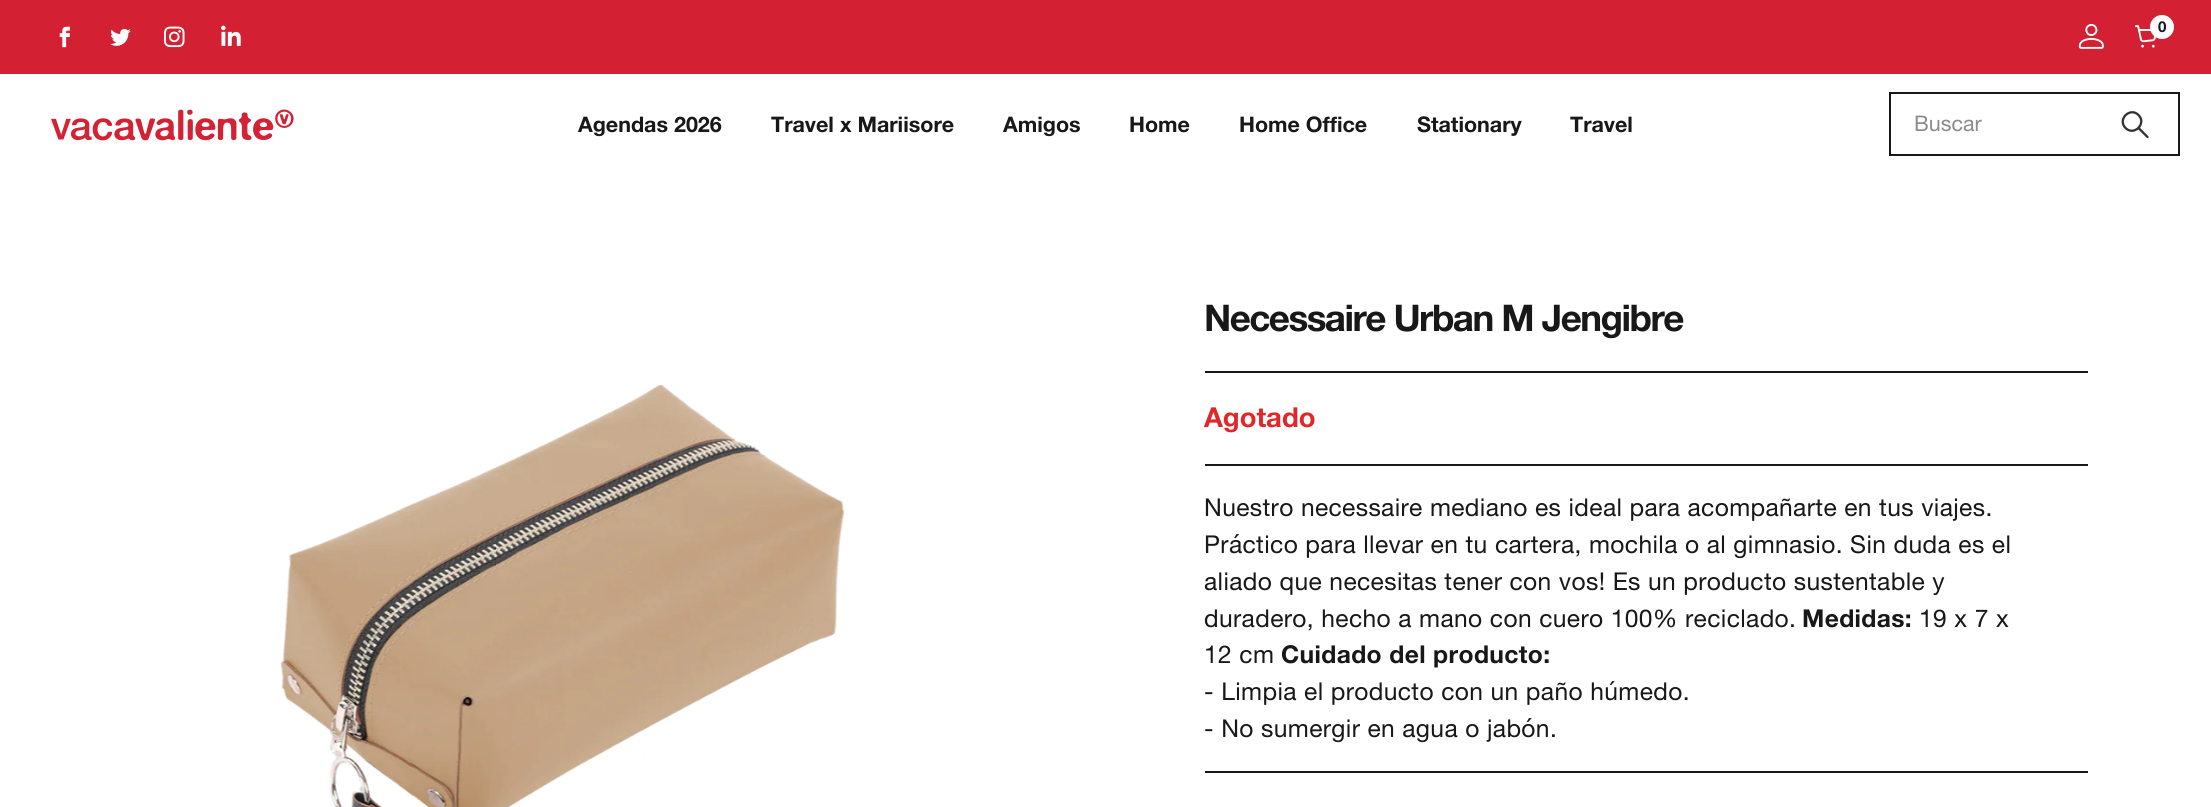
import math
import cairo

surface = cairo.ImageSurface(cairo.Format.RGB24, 2211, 807)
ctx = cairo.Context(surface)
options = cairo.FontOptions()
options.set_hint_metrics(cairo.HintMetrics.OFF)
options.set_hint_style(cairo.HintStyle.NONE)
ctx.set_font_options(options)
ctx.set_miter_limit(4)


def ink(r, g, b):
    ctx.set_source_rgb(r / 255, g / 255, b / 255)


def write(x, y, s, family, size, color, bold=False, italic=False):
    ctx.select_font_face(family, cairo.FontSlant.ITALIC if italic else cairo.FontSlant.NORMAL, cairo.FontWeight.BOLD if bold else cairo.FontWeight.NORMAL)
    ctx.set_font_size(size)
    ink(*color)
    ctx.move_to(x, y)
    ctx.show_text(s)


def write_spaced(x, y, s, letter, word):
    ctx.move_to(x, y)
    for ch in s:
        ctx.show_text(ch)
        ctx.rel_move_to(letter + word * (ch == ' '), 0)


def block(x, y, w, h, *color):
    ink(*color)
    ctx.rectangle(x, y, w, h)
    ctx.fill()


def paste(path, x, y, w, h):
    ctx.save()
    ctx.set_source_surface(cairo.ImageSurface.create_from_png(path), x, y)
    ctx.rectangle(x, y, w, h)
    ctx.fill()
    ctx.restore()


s1 = dict(family="Helvetica Neue", size=15, color=(24, 24, 24), bold=True)
s2 = dict(family="Helvetica Neue", size=21.5, color=(24, 24, 24), bold=True)
s3 = dict(family="Helvetica Neue", size=21.5, color=(140, 140, 140))
s4 = dict(family="Helvetica Neue", size=27.5, color=(225, 39, 41), bold=True)

ink(255, 255, 255)
ctx.paint()
block(0, 0, 2211, 74, 211, 33, 51)
paste("pic1.png", 59, 26, 11, 22)
paste("pic2.png", 110, 28, 21, 18)
paste("pic3.png", 164, 26, 21, 22)
paste("pic4.png", 221, 25, 20, 21)
paste("pic5.png", 2078, 23, 26, 26)
paste("pic6.png", 2135, 25, 21, 23)
ink(255, 255, 255)
ctx.arc(2162, 27, 12, 0, 2 * math.pi)
ctx.fill()
write(2158, 32, "0", **s1)
paste("pic7.png", 51, 109, 243, 32)
write(578, 132, "Agendas 2026", **s2)
write(771, 132, "Travel x Mariisore", **s2)
write(1003, 132, "Amigos", **s2)
write(1129, 132, "Home", **s2)
write(1239, 132, "Home Office", **s2)
write(1417, 132, "Stationary", **s2)
write(1570, 132, "Travel", **s2)
ctx.new_path()
ctx.move_to(2138.5, 115)
ctx.curve_to(2147, 123.5, 2134, 136.5, 2125.5, 128)
ctx.curve_to(2117, 119.5, 2130, 106.5, 2138.5, 115)
ctx.move_to(2138.5, 128)
ctx.line_to(2147.5, 137)
ink(51, 50, 50)
ctx.set_line_width(2.3)
ctx.set_line_cap(cairo.LineCap.ROUND)
ctx.set_line_join(cairo.LineJoin.ROUND)
ctx.stroke()
ctx.rectangle(1890, 93, 289, 62)
ink(24, 24, 24)
ctx.set_line_width(2)
ctx.set_line_cap(cairo.LineCap.BUTT)
ctx.set_line_join(cairo.LineJoin.MITER)
ctx.stroke()
write(1914, 131, "Buscar", **s3)
paste("pic8.png", 280, 385, 565, 422)
block(1205, 371, 883, 2, 24, 24, 24)
ctx.select_font_face("Helvetica Neue", cairo.FontSlant.NORMAL, cairo.FontWeight.BOLD)
ctx.set_font_size(36.8)
write_spaced(1204, 331, "Necessaire Urban M Jengibre", -1.55, 0)
block(1205, 464, 883, 2, 24, 24, 24)
write(1204, 427, "Agotado", **s4)
block(1205, 771, 883, 2, 24, 24, 24)
ctx.select_font_face("Helvetica Neue")
ctx.set_font_size(24.6)
write_spaced(1204, 516, "Nuestro necessaire mediano es ideal para acompañarte en tus viajes.", 0.38, 0)
write_spaced(1204, 553, "Práctico para llevar en tu cartera, mochila o al gimnasio. Sin duda es el", 0.38, 0)
write_spaced(1204, 590, "aliado que necesitas tener con vos! Es un producto sustentable y", 0.38, 0)
write_spaced(1204, 627, "duradero, hecho a mano con cuero 100% reciclado.", 0.38, 0)
ctx.select_font_face("Helvetica Neue", cairo.FontSlant.NORMAL, cairo.FontWeight.BOLD)
write_spaced(1802, 627, "Medidas:", 0.38, 0)
ctx.select_font_face("Helvetica Neue")
write_spaced(1919, 627, "19 x 7 x", 0.38, 0)
write_spaced(1204, 663, "12 cm", 0.38, 0)
ctx.select_font_face("Helvetica Neue", cairo.FontSlant.NORMAL, cairo.FontWeight.BOLD)
write_spaced(1281, 663, "Cuidado del producto:", 0.38, 0)
ctx.select_font_face("Helvetica Neue")
write_spaced(1204, 700, "- Limpia el producto con un paño húmedo.", 0.38, 0)
write_spaced(1204, 737, "- No sumergir en agua o jabón.", 0.38, 0)
surface.write_to_png("screenshot.png")
